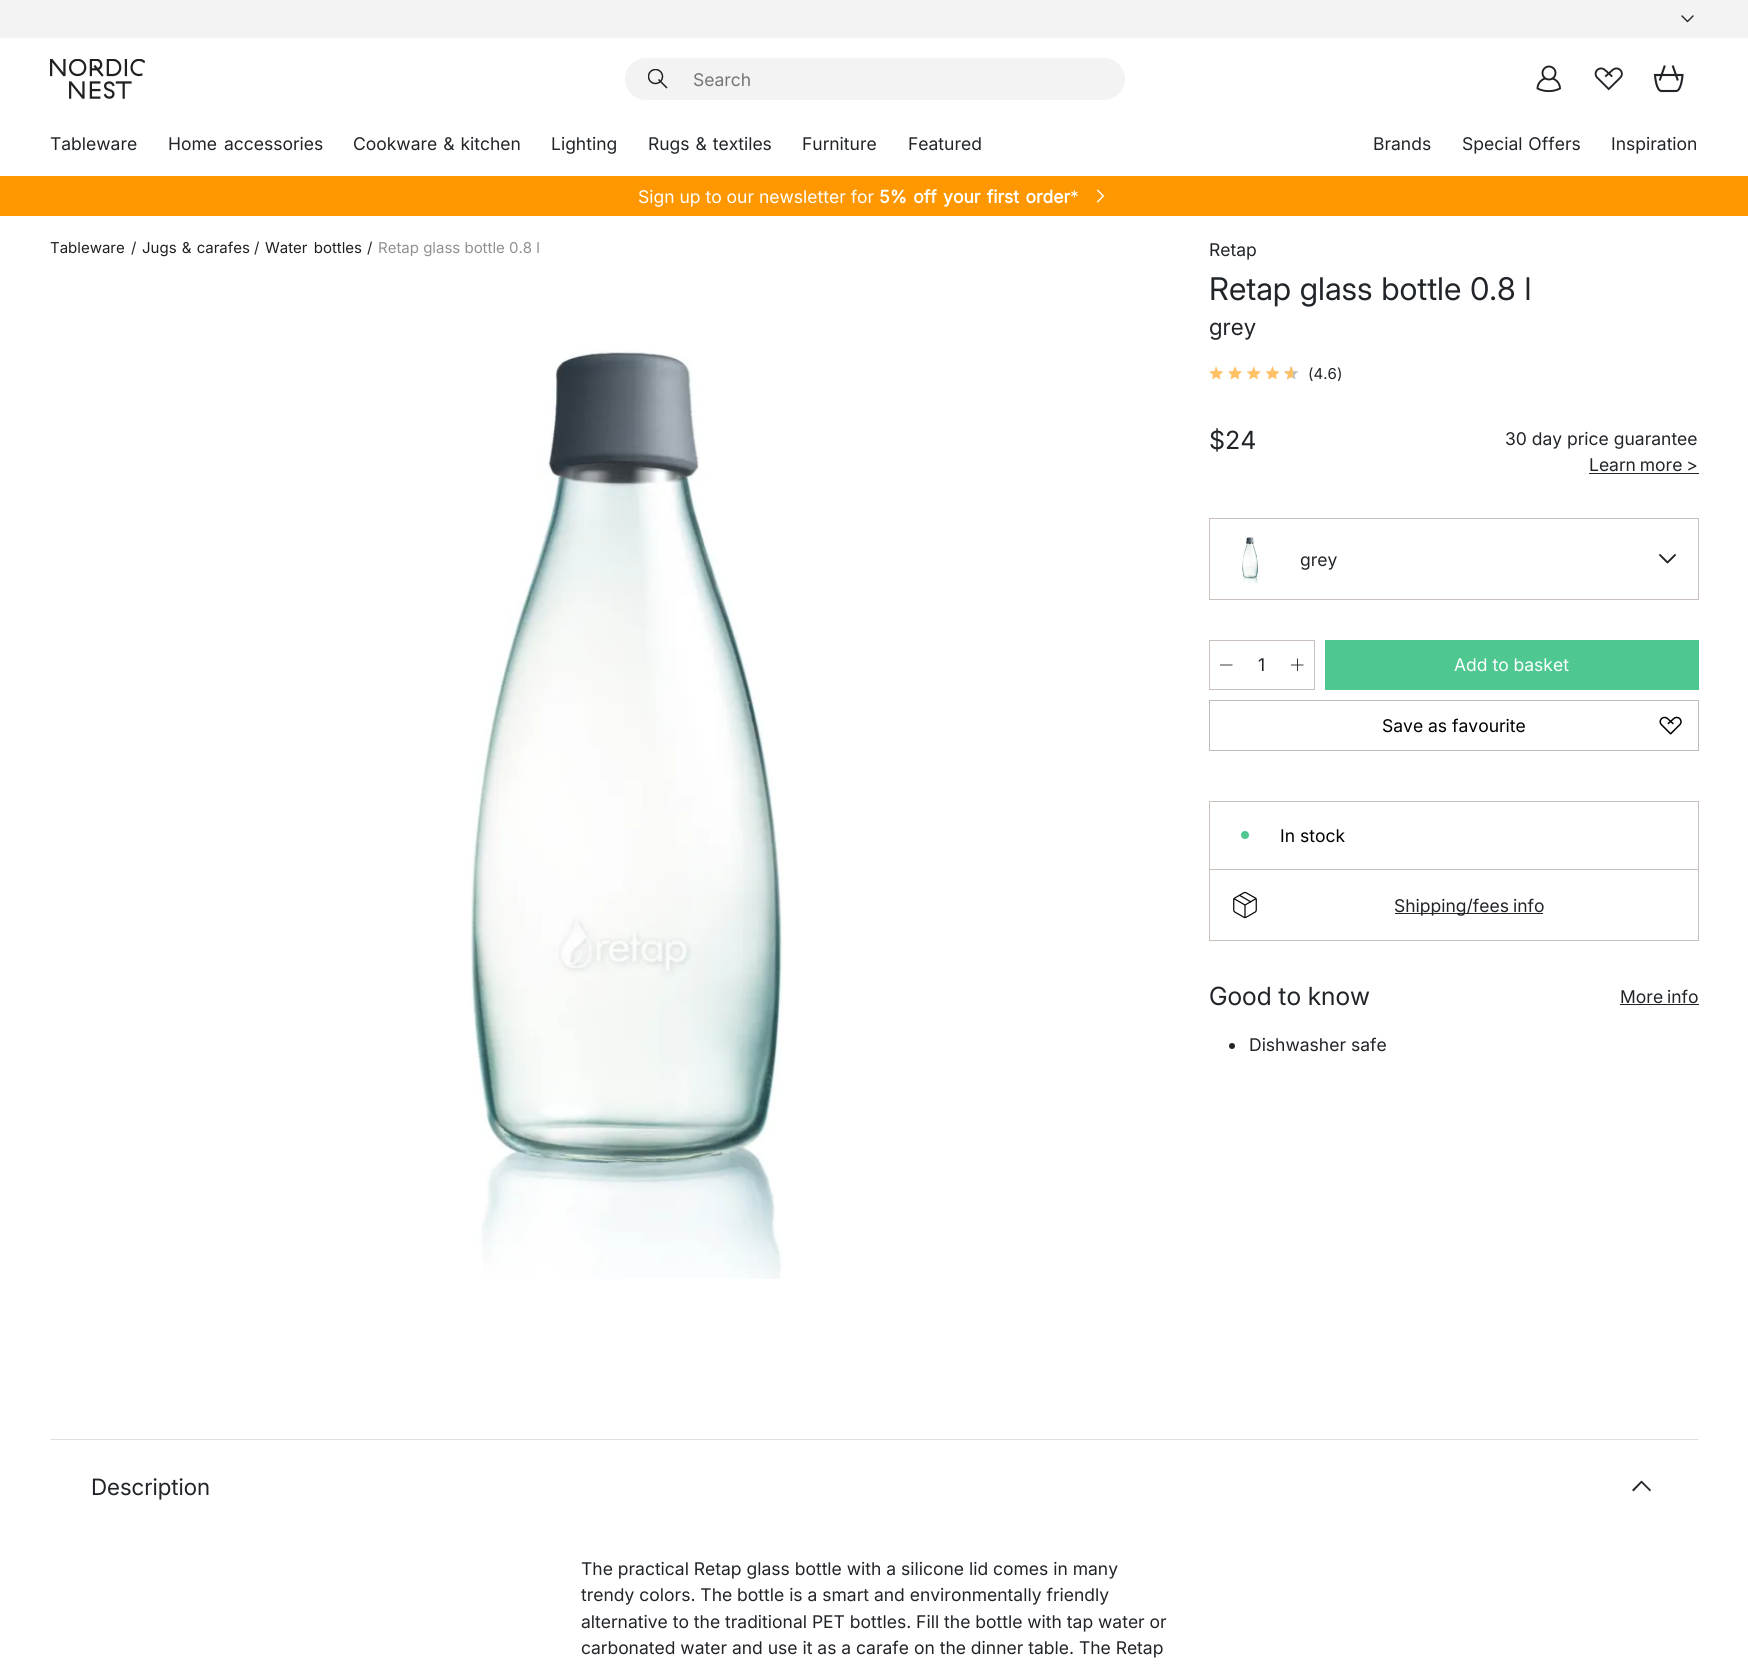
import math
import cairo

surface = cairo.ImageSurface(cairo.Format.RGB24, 1748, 1664)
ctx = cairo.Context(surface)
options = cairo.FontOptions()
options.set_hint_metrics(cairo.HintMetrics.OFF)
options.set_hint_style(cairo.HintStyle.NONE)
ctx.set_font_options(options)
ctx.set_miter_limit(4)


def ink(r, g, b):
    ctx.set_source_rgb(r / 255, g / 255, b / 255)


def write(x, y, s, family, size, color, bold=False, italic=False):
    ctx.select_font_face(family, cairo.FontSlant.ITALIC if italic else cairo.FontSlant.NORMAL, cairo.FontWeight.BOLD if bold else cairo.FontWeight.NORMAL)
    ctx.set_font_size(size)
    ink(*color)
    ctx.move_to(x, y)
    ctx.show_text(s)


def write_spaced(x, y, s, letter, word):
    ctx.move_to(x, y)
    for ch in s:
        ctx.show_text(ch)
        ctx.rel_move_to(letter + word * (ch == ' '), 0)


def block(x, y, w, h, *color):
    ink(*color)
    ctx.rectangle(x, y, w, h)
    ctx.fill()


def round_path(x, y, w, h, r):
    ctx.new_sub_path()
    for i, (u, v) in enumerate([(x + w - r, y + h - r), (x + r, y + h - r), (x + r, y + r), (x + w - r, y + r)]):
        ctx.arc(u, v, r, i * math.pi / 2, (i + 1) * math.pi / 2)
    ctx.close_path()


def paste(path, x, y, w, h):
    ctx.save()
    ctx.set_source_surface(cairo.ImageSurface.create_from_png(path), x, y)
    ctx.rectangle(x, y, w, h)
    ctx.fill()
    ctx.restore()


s1 = dict(family="Inter", size=17.5, color=(117, 117, 117))
s2 = dict(family="Inter", size=17.5, color=(33, 37, 41))
s3 = dict(family="Inter", size=17.5, color=(255, 255, 255))
s4 = dict(family="Inter", size=15, color=(30, 32, 34))
s5 = dict(family="Inter", size=15, color=(33, 37, 41))
s6 = dict(family="Inter", size=15, color=(143, 144, 145))
s7 = dict(family="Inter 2", size=22.5, color=(33, 37, 41))
s8 = dict(family="Inter", size=25, color=(33, 37, 41))
s9 = dict(family="Inter", size=17.5, color=(0, 0, 0))
s10 = dict(family="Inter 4", size=25, color=(33, 37, 41))

ink(255, 255, 255)
ctx.paint()
block(0, 0, 1748, 38, 243, 243, 243)
ctx.new_path()
ctx.move_to(1682, 16)
ctx.line_to(1687.5, 21.5)
ctx.line_to(1693, 16)
ink(33, 37, 41)
ctx.set_line_width(1.4)
ctx.set_line_cap(cairo.LineCap.ROUND)
ctx.set_line_join(cairo.LineJoin.ROUND)
ctx.stroke()
paste("pic1.png", 50, 59, 95, 40)
ink(243, 243, 243)
round_path(625, 58, 500, 42, 21)
ctx.fill()
ctx.save()
ctx.rectangle(648, 69, 20, 20)
ctx.clip()
ctx.arc(655.5, 76.5, 7, 0, 2 * math.pi)
ink(30, 32, 34)
ctx.set_line_width(1.5)
ctx.set_line_cap(cairo.LineCap.BUTT)
ctx.set_line_join(cairo.LineJoin.MITER)
ctx.stroke()
ctx.restore()
ctx.new_path()
ctx.move_to(659, 80)
ctx.line_to(666.5, 87.5)
ink(30, 32, 34)
ctx.set_line_width(1.5)
ctx.set_line_cap(cairo.LineCap.SQUARE)
ctx.set_line_join(cairo.LineJoin.MITER)
ctx.stroke()
write(693, 86, "Search", **s1)
ctx.new_path()
ctx.arc(1549, 73, 6.5, 0, 2 * math.pi)
ink(30, 32, 34)
ctx.set_line_width(1.9)
ctx.set_line_cap(cairo.LineCap.BUTT)
ctx.stroke()
ctx.new_path()
ctx.move_to(1545, 78.5)
ctx.curve_to(1540.5, 80, 1537.5, 84, 1537.5, 88.5)
ctx.curve_to(1544.5, 92, 1553, 92, 1560, 88.5)
ctx.curve_to(1560, 84, 1557, 80, 1552.5, 78.5)
ctx.stroke()
paste("pic2.png", 1594, 67, 29, 24)
ctx.new_path()
ctx.move_to(1673, 66.5)
ctx.line_to(1677.5, 79.5)
ctx.move_to(1664.5, 66.5)
ctx.line_to(1660, 79.5)
ctx.move_to(1655, 75)
ctx.line_to(1682.5, 75)
ctx.curve_to(1682.5, 75, 1681.5, 91, 1676, 91)
ctx.line_to(1661.5, 91)
ctx.curve_to(1656, 91, 1655, 75, 1655, 75)
ctx.close_path()
ink(33, 37, 41)
ctx.set_line_width(2.1)
ctx.set_line_cap(cairo.LineCap.SQUARE)
ctx.stroke()
write(50, 150, "Tableware", **s2)
write_spaced(168, 150, "Home accessories", 0, 2)
write_spaced(353, 150, "Cookware & kitchen", 0, 1)
write(551, 150, "Lighting", **s2)
write_spaced(648, 150, "Rugs & textiles", 0, 1)
write(802, 150, "Furniture", **s2)
write(908, 150, "Featured", **s2)
write(1373, 150, "Brands", **s2)
write_spaced(1462, 150, "Special Offers", 0, 1)
write(1611, 150, "Inspiration", **s2)
block(0, 176, 1748, 40, 255, 152, 0)
write(638, 203, "Sign up to our newsletter for", **s3)
ctx.select_font_face("Inter", cairo.FontSlant.NORMAL, cairo.FontWeight.BOLD)
write_spaced(879, 203, "5% off your first order", 0, 1.5)
write(1070, 203, "*", **s3)
paste("pic3.png", 1096, 189, 9, 14)
write(50, 253, "Tableware", **s4)
write(131, 253, "/", **s5)
ink(30, 32, 34)
write_spaced(142, 253, "Jugs & carafes", 0, 1)
write(254, 253, "/", **s5)
ink(30, 32, 34)
write_spaced(265, 253, "Water bottles", 0, 2)
write(367, 253, "/", **s5)
write(378, 253, "Retap glass bottle 0.8 l", **s6)
paste("pic4.png", 470, 350, 313, 929)
write(1209, 256, "Retap", **s2)
ctx.select_font_face("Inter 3")
ctx.set_font_size(31.25)
write_spaced(1209, 300, "Retap glass bottle 0.8 l", 0, 0.5)
write(1209, 335, "grey", **s7)
ink(255, 193, 102)
ctx.new_path()
ctx.move_to(1216, 377)
ctx.line_to(1220.5, 379.5)
ctx.line_to(1219.5, 375)
ctx.line_to(1223.5, 371.5)
ctx.line_to(1218, 371)
ctx.line_to(1216, 366)
ctx.line_to(1214.5, 371)
ctx.line_to(1209, 371.5)
ctx.line_to(1213, 375)
ctx.line_to(1212, 379.5)
ctx.close_path()
ctx.move_to(1235, 377)
ctx.line_to(1230.5, 379.5)
ctx.line_to(1231.5, 375)
ctx.line_to(1228, 371.5)
ctx.line_to(1233, 371)
ctx.line_to(1235, 366)
ctx.line_to(1237, 371)
ctx.line_to(1242, 371.5)
ctx.line_to(1238.5, 375)
ctx.line_to(1239, 379.5)
ctx.close_path()
ctx.move_to(1254, 377)
ctx.line_to(1258, 379.5)
ctx.line_to(1257, 375)
ctx.line_to(1261, 371.5)
ctx.line_to(1255.5, 371)
ctx.line_to(1254, 366)
ctx.line_to(1252, 371)
ctx.line_to(1246.5, 371.5)
ctx.line_to(1250.5, 375)
ctx.line_to(1249, 379.5)
ctx.close_path()
ctx.fill()
ctx.new_path()
ctx.move_to(1272.5, 377)
ctx.line_to(1276.5, 379.5)
ctx.line_to(1276, 375)
ctx.line_to(1279.5, 371.5)
ctx.line_to(1274.5, 371)
ctx.line_to(1272.5, 366)
ctx.line_to(1270.5, 371)
ctx.line_to(1265.5, 371.5)
ctx.line_to(1269, 375)
ctx.line_to(1268, 379.5)
ctx.close_path()
ctx.fill()
ink(193, 193, 193)
ctx.new_path()
ctx.move_to(1291, 377)
ctx.line_to(1295.5, 379.5)
ctx.line_to(1294.5, 375)
ctx.line_to(1298.5, 371.5)
ctx.line_to(1293, 371)
ctx.line_to(1291, 366)
ctx.line_to(1289.5, 371)
ctx.line_to(1284, 371.5)
ctx.line_to(1288, 375)
ctx.line_to(1287, 379.5)
ctx.close_path()
ctx.fill()
ink(255, 193, 102)
ctx.new_path()
ctx.move_to(1291, 377)
ctx.line_to(1287, 379.5)
ctx.line_to(1288, 375)
ctx.line_to(1284, 371.5)
ctx.line_to(1289.5, 371)
ctx.line_to(1291, 366)
ctx.line_to(1293, 370.5)
ctx.line_to(1293, 378)
ctx.close_path()
ctx.fill()
write(1308, 379, "(4.6", **s5)
write(1337, 379, ")", **s5)
write(1209, 449, "$24", **s8)
write(1505, 445, "30 day price guarantee", **s2)
write_spaced(1589, 471, "Learn more >", 0, -1)
block(1589, 473, 110, 1, 33, 37, 41)
ctx.rectangle(1209.5, 518.5, 489, 81)
ink(201, 192, 187)
ctx.set_line_width(1)
ctx.set_line_cap(cairo.LineCap.BUTT)
ctx.stroke()
paste("pic5.png", 1242, 537, 16, 47)
write(1300, 566, "grey", **s2)
ctx.new_path()
ctx.move_to(1660, 555)
ctx.line_to(1667.5, 562.5)
ctx.line_to(1675, 555)
ctx.set_line_width(1.9)
ctx.set_line_cap(cairo.LineCap.ROUND)
ctx.set_line_join(cairo.LineJoin.ROUND)
ctx.stroke()
ctx.rectangle(1209.5, 640.5, 105, 49)
ink(201, 192, 187)
ctx.set_line_width(1)
ctx.set_line_cap(cairo.LineCap.BUTT)
ctx.set_line_join(cairo.LineJoin.MITER)
ctx.stroke()
ctx.new_path()
ctx.move_to(1220, 665)
ctx.line_to(1232.5, 665)
ink(33, 37, 41)
ctx.set_line_width(0.9)
ctx.stroke()
write(1258, 671, "1", **s2)
ctx.new_path()
ctx.move_to(1297.5, 658.5)
ctx.line_to(1297.5, 671)
ctx.move_to(1291, 665)
ctx.line_to(1303.5, 665)
ctx.stroke()
block(1325, 640, 374, 50, 78, 199, 145)
write(1454, 671, "Add to basket", **s3)
ctx.rectangle(1209.5, 700.5, 489, 50)
ink(187, 188, 188)
ctx.set_line_width(1)
ctx.stroke()
write(1382, 732, "Save as favourite", **s9)
paste("pic6.png", 1659, 716, 23, 19)
ctx.rectangle(1209.5, 801.5, 489, 68)
ink(201, 192, 187)
ctx.stroke()
ink(78, 199, 145)
ctx.arc(1245, 835, 4, 0, 2 * math.pi)
ctx.fill()
write(1280, 842, "In stock", **s9)
block(1698, 870, 1, 71, 201, 192, 187)
block(1209, 940, 490, 1, 201, 192, 187)
block(1209, 870, 1, 71, 201, 192, 187)
paste("pic7.png", 1233, 891, 24, 28)
block(1395, 913, 148, 1, 33, 37, 41)
write_spaced(1394, 912, "Shipping/fees info", 0, -1)
write(1209, 1005, "Good to know", **s10)
ctx.select_font_face("Inter")
ctx.set_font_size(17.5)
write_spaced(1620, 1003, "More info", 0, -1)
block(1620, 1004, 79, 1, 33, 37, 41)
ctx.new_path()
ctx.arc(1232, 1046, 3, 0, 2 * math.pi)
ctx.fill()
write(1249, 1051, "Dishwasher safe", **s2)
ink(227, 223, 220)
ctx.new_path()
ctx.move_to(50, 1439)
ctx.line_to(1699, 1439)
ctx.line_to(1698, 1440)
ctx.line_to(51, 1440)
ctx.close_path()
ctx.fill()
write(91, 1495, "Description", **s7)
ctx.new_path()
ctx.move_to(1632, 1490)
ctx.line_to(1633.5, 1491.5)
ctx.line_to(1641.5, 1483)
ctx.line_to(1650, 1491.5)
ctx.line_to(1651, 1490)
ctx.line_to(1641.5, 1480.5)
ctx.close_path()
ctx.fill()
write(581, 1575, "The practical Retap glass bottle with a silicone lid comes in many", **s2)
write(581, 1601, "trendy colors. The bottle is a smart and environmentally friendly", **s2)
write(581, 1628, "alternative to the traditional PET bottles. Fill the bottle with tap water or", **s2)
write(581, 1654, "carbonated water and use it as a carafe on the dinner table. The Retap", **s2)
surface.write_to_png("screenshot.png")
